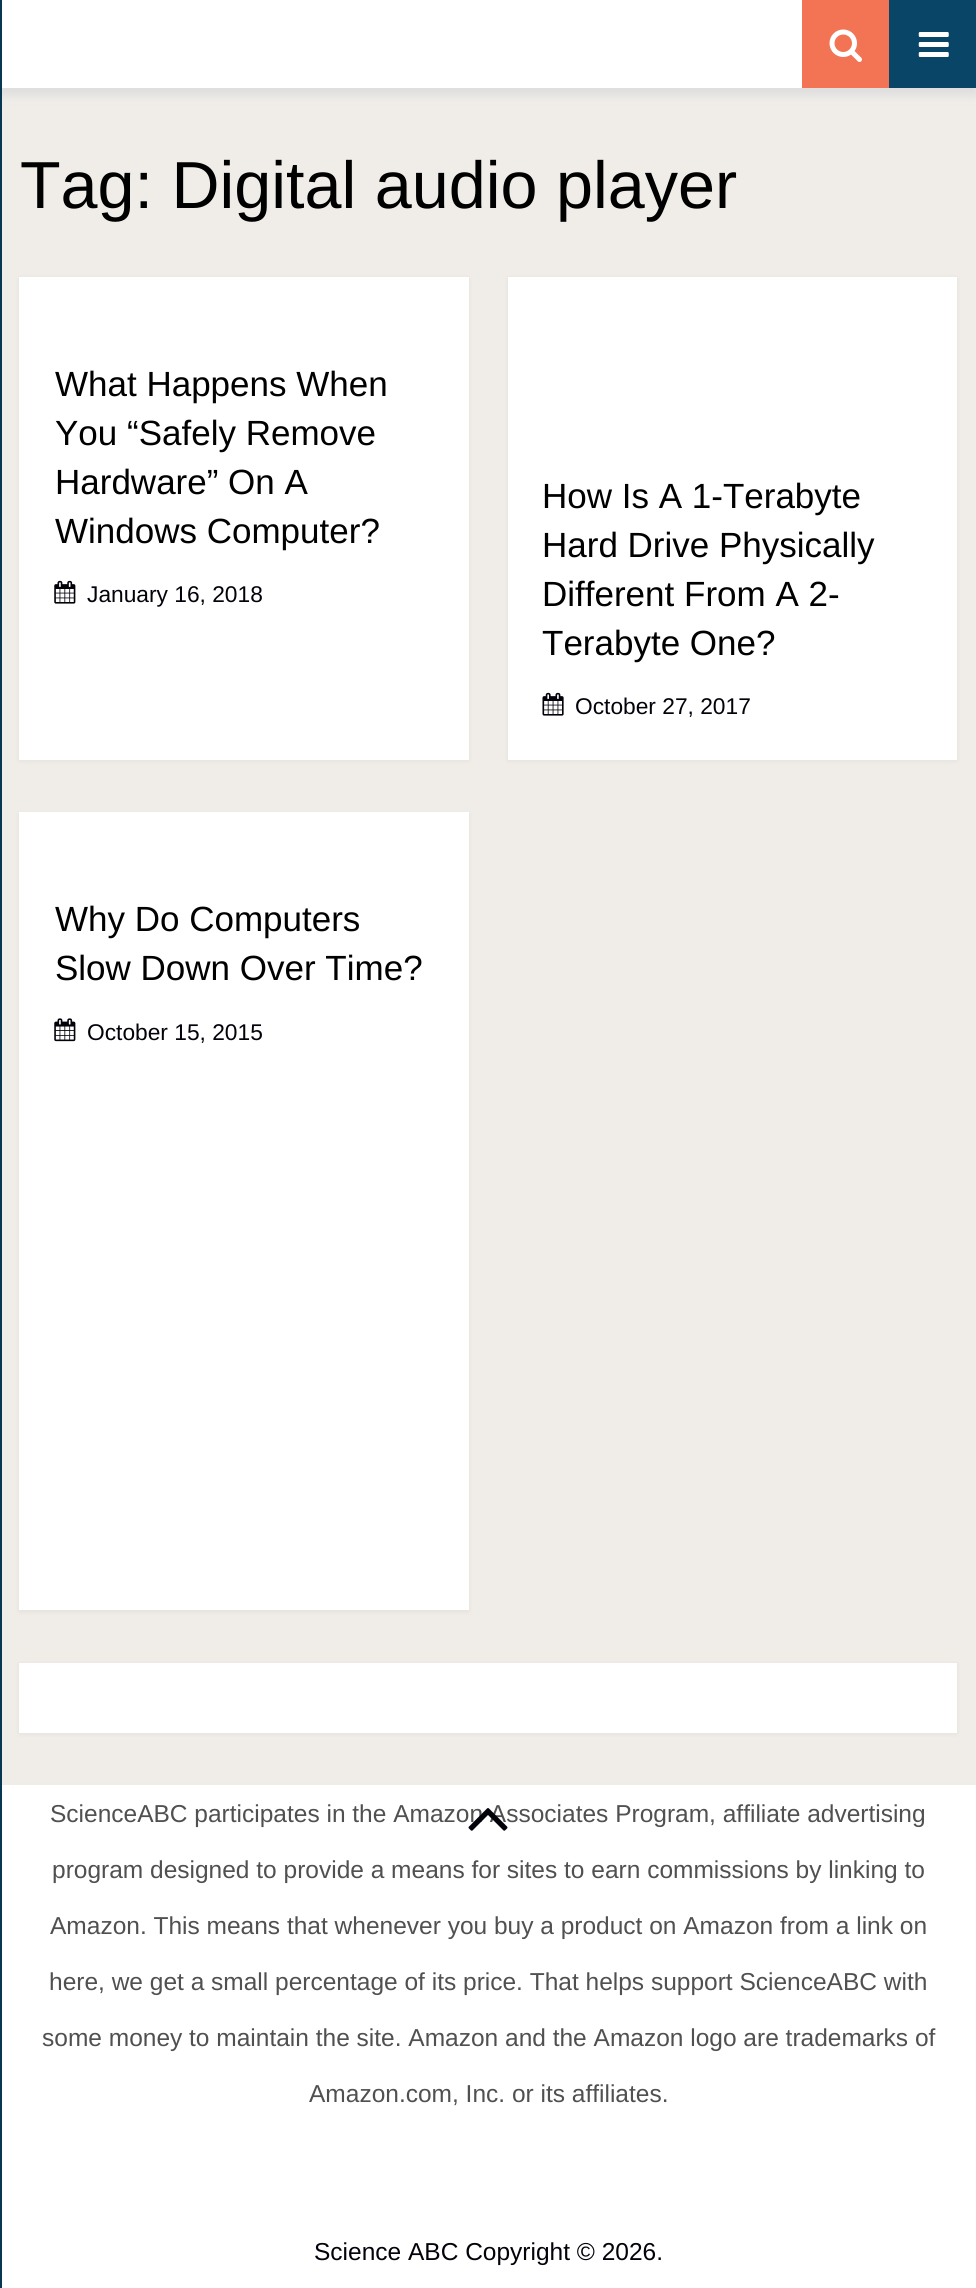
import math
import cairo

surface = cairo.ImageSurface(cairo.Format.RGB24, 976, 2288)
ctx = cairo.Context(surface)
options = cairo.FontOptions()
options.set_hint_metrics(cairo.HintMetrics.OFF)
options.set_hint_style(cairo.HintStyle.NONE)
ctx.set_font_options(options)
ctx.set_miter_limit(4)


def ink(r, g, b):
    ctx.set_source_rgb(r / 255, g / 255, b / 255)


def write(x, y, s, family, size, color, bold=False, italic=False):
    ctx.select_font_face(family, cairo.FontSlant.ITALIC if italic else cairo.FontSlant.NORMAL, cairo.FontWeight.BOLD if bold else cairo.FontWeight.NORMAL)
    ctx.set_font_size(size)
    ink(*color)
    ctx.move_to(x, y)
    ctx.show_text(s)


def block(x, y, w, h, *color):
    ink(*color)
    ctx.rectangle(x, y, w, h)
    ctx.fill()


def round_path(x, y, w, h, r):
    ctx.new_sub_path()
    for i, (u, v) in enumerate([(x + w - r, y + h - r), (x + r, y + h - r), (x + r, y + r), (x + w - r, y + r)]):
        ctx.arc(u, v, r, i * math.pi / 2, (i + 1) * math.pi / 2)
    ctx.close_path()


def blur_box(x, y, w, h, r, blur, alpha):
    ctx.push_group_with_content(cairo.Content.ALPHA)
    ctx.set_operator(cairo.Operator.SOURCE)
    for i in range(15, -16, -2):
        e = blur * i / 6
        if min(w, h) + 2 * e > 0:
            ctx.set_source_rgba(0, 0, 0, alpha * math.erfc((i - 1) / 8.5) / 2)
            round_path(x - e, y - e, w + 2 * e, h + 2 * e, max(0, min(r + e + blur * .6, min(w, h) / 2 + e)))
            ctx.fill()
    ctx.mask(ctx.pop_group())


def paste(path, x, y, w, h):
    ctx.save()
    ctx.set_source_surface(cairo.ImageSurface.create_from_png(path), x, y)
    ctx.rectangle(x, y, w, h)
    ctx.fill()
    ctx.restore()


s1 = dict(family="Liberation Sans", size=66.5, color=(0, 0, 0))
s2 = dict(family="Liberation Sans", size=35, color=(0, 0, 0))
s3 = dict(family="Liberation Sans", size=22.75, color=(2, 2, 10))
s4 = dict(family="Liberation Sans", size=24.5, color=(80, 80, 80))
s5 = dict(family="Liberation Sans", size=24.5, color=(2, 2, 10))

ink(240, 237, 233)
ctx.paint()
ink(221, 221, 221)
blur_box(0, 7, 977, 88, 0, 4.5, 1)
block(2, 0, 800, 88, 255, 255, 255)
block(889, 0, 87, 88, 9, 69, 102)
block(0, 0, 2, 2288, 7, 55, 82)
paste("pic1.png", 918, 32, 31, 25)
block(802, 0, 87, 88, 243, 116, 84)
paste("pic2.png", 829, 29, 33, 33)
write(20, 208, "Tag: Digital audio player", **s1)
ink(0, 0, 0)
blur_box(19, 278, 450, 483, 0, 2, 0.05)
block(19, 277, 450, 483, 255, 255, 255)
write(55, 396, "What Happens When", **s2)
write(55, 445, "You “Safely Remove", **s2)
write(55, 494, "Hardware” On A", **s2)
write(55, 543, "Windows Computer?", **s2)
paste("pic3.png", 54, 580, 22, 24)
write(87, 602, "January 16, 2018", **s3)
ink(0, 0, 0)
blur_box(508, 278, 449, 483, 0, 2, 0.05)
block(508, 277, 449, 483, 255, 255, 255)
write(542, 508, "How Is A 1-Terabyte", **s2)
write(542, 557, "Hard Drive Physically", **s2)
write(542, 606, "Different From A 2-", **s2)
write(542, 655, "Terabyte One?", **s2)
paste("pic4.png", 542, 692, 22, 24)
write(575, 714, "October 27, 2017", **s3)
ink(0, 0, 0)
blur_box(19, 814, 450, 798, 0, 2, 0.05)
block(19, 812, 450, 798, 255, 255, 255)
write(55, 931, "Why Do Computers", **s2)
write(55, 980, "Slow Down Over Time?", **s2)
paste("pic5.png", 54, 1018, 22, 24)
write(87, 1040, "October 15, 2015", **s3)
ink(0, 0, 0)
blur_box(19, 1664, 938, 70, 0, 2, 0.05)
block(19, 1663, 938, 70, 255, 255, 255)
block(2, 1785, 974, 503, 255, 255, 255)
write(50, 1822, "ScienceABC participates in the Amazon Associates Program, affiliate advertising", **s4)
write(52, 1878, "program designed to provide a means for sites to earn commissions by linking to", **s4)
write(50, 1934, "Amazon. This means that whenever you buy a product on Amazon from a link on", **s4)
write(49, 1990, "here, we get a small percentage of its price. That helps support ScienceABC with", **s4)
write(42, 2046, "some money to maintain the site. Amazon and the Amazon logo are trademarks of", **s4)
write(309, 2102, "Amazon.com, Inc. or its affiliates.", **s4)
paste("pic6.png", 468, 1808, 40, 23)
write(314, 2260, "Science ABC Copyright © 2026.", **s5)
surface.write_to_png("screenshot.png")
